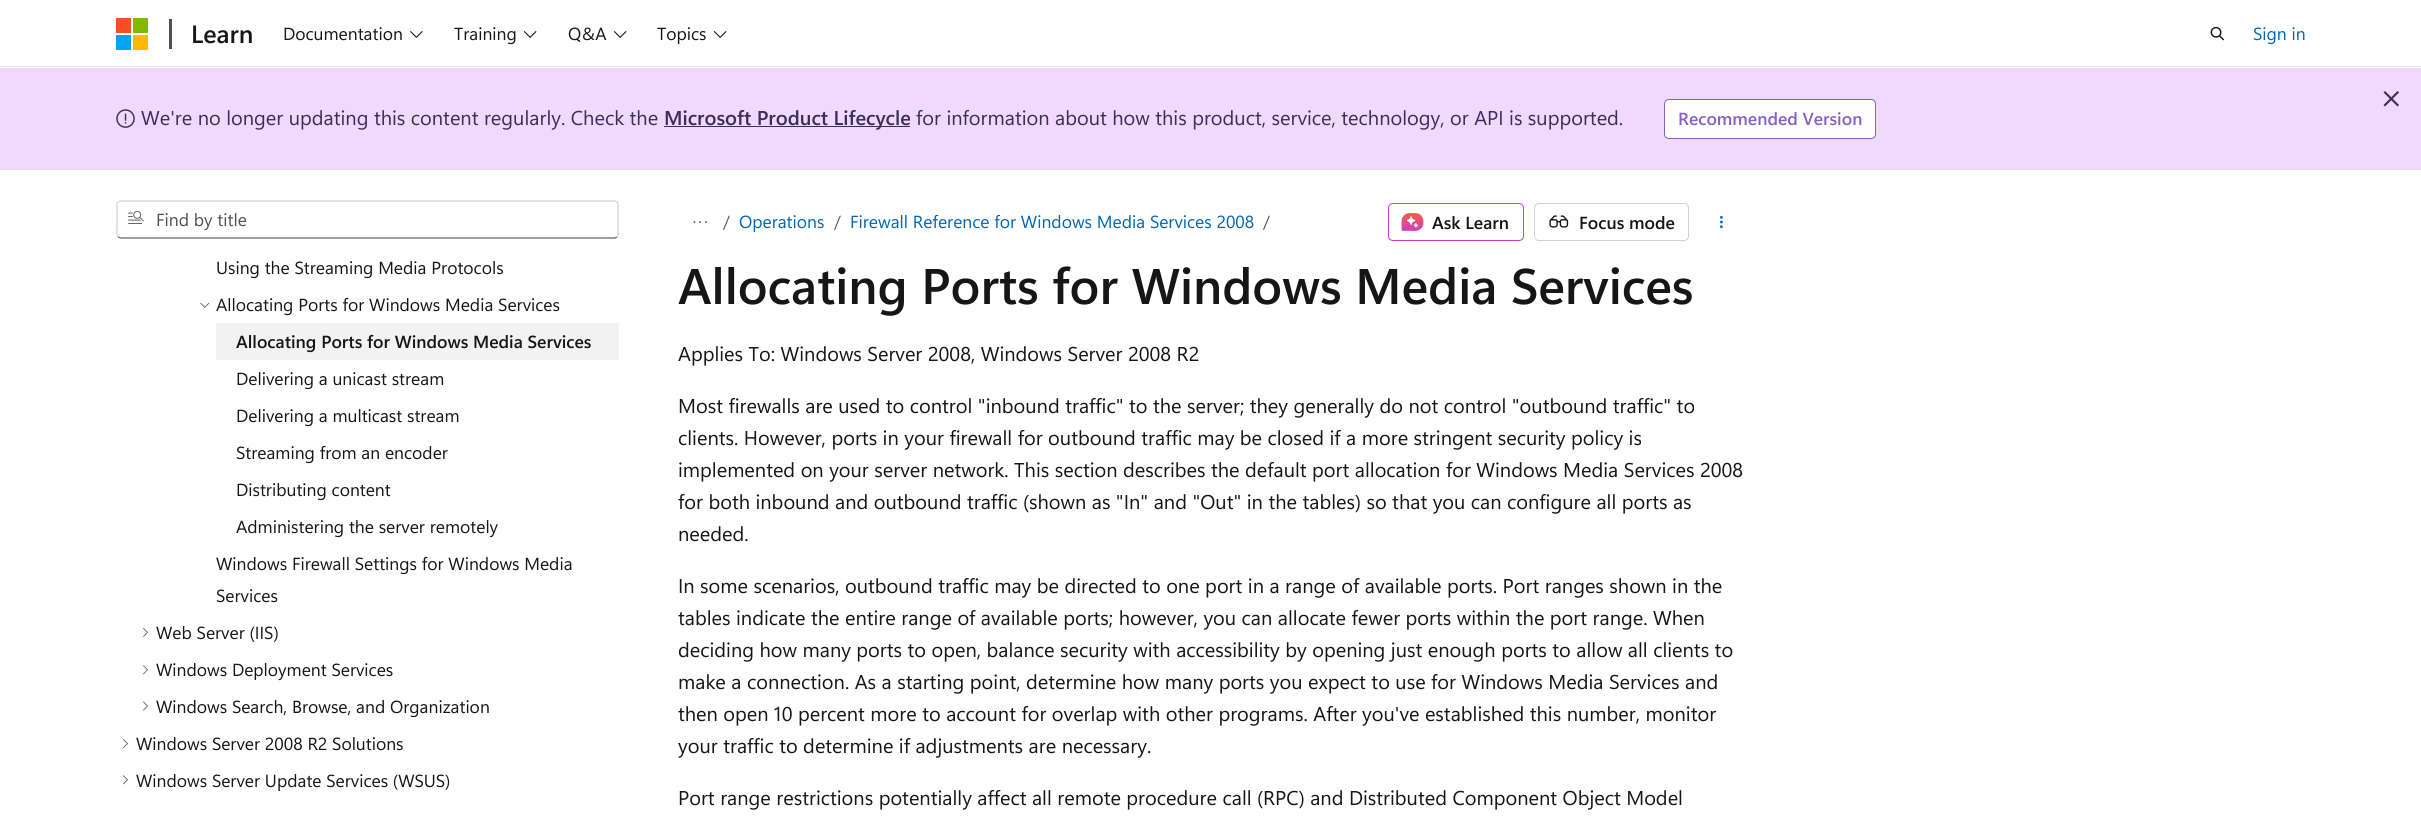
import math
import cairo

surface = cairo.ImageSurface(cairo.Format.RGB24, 2421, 830)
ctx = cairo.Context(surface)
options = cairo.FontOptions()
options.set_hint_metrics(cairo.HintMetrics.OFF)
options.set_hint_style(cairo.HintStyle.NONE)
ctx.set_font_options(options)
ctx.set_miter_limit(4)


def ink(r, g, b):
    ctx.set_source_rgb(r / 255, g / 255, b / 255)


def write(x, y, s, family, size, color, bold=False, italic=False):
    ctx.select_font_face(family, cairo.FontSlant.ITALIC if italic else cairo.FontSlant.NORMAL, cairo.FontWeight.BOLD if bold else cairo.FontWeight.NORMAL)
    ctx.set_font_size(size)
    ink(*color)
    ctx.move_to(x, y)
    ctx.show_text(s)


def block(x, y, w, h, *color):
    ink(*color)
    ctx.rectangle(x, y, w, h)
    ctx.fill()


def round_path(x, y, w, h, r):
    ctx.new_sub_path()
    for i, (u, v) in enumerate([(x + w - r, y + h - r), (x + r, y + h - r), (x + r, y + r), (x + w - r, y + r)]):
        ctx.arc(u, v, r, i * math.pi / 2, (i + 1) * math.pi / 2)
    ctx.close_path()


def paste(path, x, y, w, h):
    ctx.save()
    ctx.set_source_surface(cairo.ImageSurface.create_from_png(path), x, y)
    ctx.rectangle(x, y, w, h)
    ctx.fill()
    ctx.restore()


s1 = dict(family="Segoe UI SemiBold", size=25, color=(22, 22, 22))
s2 = dict(family="Segoe UI", size=17.5, color=(22, 22, 22))
s3 = dict(family="Segoe UI", size=17.5, color=(0, 101, 179))
s4 = dict(family="Segoe UI", size=20, color=(59, 46, 88))
s5 = dict(family="Segoe UI SemiBold", size=20, color=(59, 46, 88))
s6 = dict(family="Segoe UI SemiBold", size=17.5, color=(134, 97, 197))
s7 = dict(family="Segoe UI", size=17.5, color=(80, 80, 80))
s8 = dict(family="Segoe UI SemiBold", size=17.5, color=(22, 22, 22))
s9 = dict(family="Segoe UI SemiBold", size=50, color=(22, 22, 22))
s10 = dict(family="Segoe UI", size=20, color=(22, 22, 22))

ink(255, 255, 255)
ctx.paint()
block(0, 66, 2421, 1, 230, 230, 230)
block(116, 18, 15, 15, 242, 80, 34)
block(133, 18, 15, 15, 127, 186, 0)
block(116, 35, 15, 15, 0, 164, 239)
block(133, 35, 15, 15, 255, 185, 0)
block(169, 19, 3, 30, 80, 80, 80)
write(191, 43, "Learn", **s1)
write(283, 40, "Documentation", **s2)
paste("pic1.png", 410, 31, 13, 7)
write(454, 40, "Training", **s2)
paste("pic2.png", 523, 31, 14, 7)
write(568, 40, "Q&A", **s2)
paste("pic2.png", 613, 31, 14, 7)
write(657, 40, "Topics", **s2)
paste("pic2.png", 713, 31, 14, 7)
paste("pic3.png", 2210, 26, 14, 15)
write(2253, 40, "Sign in", **s3)
block(0, 68, 2421, 102, 239, 217, 253)
ink(59, 46, 88)
ctx.new_path()
ctx.move_to(2385, 91)
ctx.line_to(2399, 105)
ctx.line_to(2397.5, 106.5)
ctx.line_to(2383.5, 92.5)
ctx.close_path()
ctx.fill()
ctx.new_path()
ctx.move_to(2397.5, 91)
ctx.line_to(2399, 92.5)
ctx.line_to(2385, 106.5)
ctx.line_to(2383.5, 105)
ctx.close_path()
ctx.fill()
paste("pic4.png", 116, 109, 19, 19)
write(141, 125, "We're no longer updating this content regularly. Check the", **s4)
block(664, 126, 246, 1, 59, 46, 88)
write(664, 125, "Microsoft Product Lifecycle", **s5)
write(916, 125, "for information about how this product, service, technology, or API is supported.", **s4)
ink(255, 255, 255)
round_path(1664.5, 99.5, 211, 39, 4.5)
ctx.fill_preserve()
ink(134, 97, 197)
ctx.set_line_width(1)
ctx.stroke()
write(1678, 125, "Recommended Version", **s6)
ctx.new_path()
ctx.move_to(617, 237)
ctx.line_to(615, 238)
ctx.line_to(449.5, 238)
ctx.line_to(121, 238)
ctx.line_to(118, 237)
ink(97, 97, 97)
ctx.set_line_width(1.2)
ctx.stroke()
ctx.new_path()
ctx.move_to(118, 237)
ctx.curve_to(116, 235, 117, 231.5, 117, 229)
ctx.line_to(117, 210)
ctx.curve_to(117, 207, 116, 202.5, 119.5, 201)
ctx.line_to(615.5, 201)
ctx.curve_to(619, 202.5, 618, 207, 618, 210)
ctx.line_to(618, 229)
ctx.curve_to(618, 231.5, 619, 235, 617, 237)
ink(209, 209, 209)
ctx.stroke()
paste("pic5.png", 128, 210, 16, 14)
write(156, 226, "Find by title", **s7)
write(216, 274, "Using the Streaming Media Protocols", **s2)
paste("pic6.png", 200, 302, 10, 6)
write(216, 311, "Allocating Ports for Windows Media Services", **s2)
block(216, 323, 403, 37, 242, 242, 242)
write(236, 348, "Allocating Ports for Windows Media Services", **s8)
write(236, 385, "Delivering a unicast stream", **s2)
write(236, 422, "Delivering a multicast stream", **s2)
write(236, 459, "Streaming from an encoder", **s2)
write(236, 496, "Distributing content", **s2)
write(236, 533, "Administering the server remotely", **s2)
write(216, 570, "Windows Firewall Settings for Windows Media", **s2)
write(216, 602, "Services", **s2)
paste("pic7.png", 143, 627, 5, 10)
write(156, 639, "Web Server (IIS)", **s2)
paste("pic8.png", 143, 665, 5, 10)
write(156, 676, "Windows Deployment Services", **s2)
paste("pic9.png", 143, 701, 5, 10)
write(156, 713, "Windows Search, Browse, and Organization", **s2)
paste("pic10.png", 123, 739, 5, 10)
write(136, 750, "Windows Server 2008 R2 Solutions", **s2)
paste("pic8.png", 123, 775, 5, 10)
write(136, 787, "Windows Server Update Services (WSUS)", **s2)
paste("pic11.png", 693, 221, 14, 2)
write(723, 228, "/", **s7)
write(739, 228, "Operations", **s3)
write(834, 228, "/", **s7)
write(850, 228, "Firewall Reference for Windows Media Services 2008", **s3)
write(1263, 228, "/", **s7)
round_path(1388.5, 203.5, 135, 37, 4.5)
ink(199, 62, 204)
ctx.set_line_width(1)
ctx.stroke()
paste("pic12.png", 1401, 213, 23, 18)
write(1432, 229, "Ask Learn", **s8)
round_path(1534.5, 203.5, 154, 37, 4.5)
ink(209, 209, 209)
ctx.stroke()
paste("pic13.png", 1549, 215, 20, 13)
write(1579, 229, "Focus mode", **s8)
paste("pic14.png", 1720, 215, 3, 14)
write(678, 304, "Allocating Ports for Windows Media Services", **s9)
write(678, 361, "Applies To: Windows Server 2008, Windows Server 2008 R2", **s10)
write(678, 413, "Most firewalls are used to control \"inbound traffic\" to the server; they generally do not control \"outbound traffic\" to", **s10)
write(678, 445, "clients. However, ports in your firewall for outbound traffic may be closed if a more stringent security policy is", **s10)
write(678, 477, "implemented on your server network. This section describes the default port allocation for Windows Media Services 2008", **s10)
write(678, 509, "for both inbound and outbound traffic (shown as \"In\" and \"Out\" in the tables) so that you can configure all ports as", **s10)
write(678, 541, "needed.", **s10)
write(678, 593, "In some scenarios, outbound traffic may be directed to one port in a range of available ports. Port ranges shown in the", **s10)
write(678, 625, "tables indicate the entire range of available ports; however, you can allocate fewer ports within the port range. When", **s10)
write(678, 657, "deciding how many ports to open, balance security with accessibility by opening just enough ports to allow all clients to", **s10)
write(678, 689, "make a connection. As a starting point, determine how many ports you expect to use for Windows Media Services and", **s10)
write(678, 721, "then open 10 percent more to account for overlap with other programs. After you've established this number, monitor", **s10)
write(678, 753, "your traffic to determine if adjustments are necessary.", **s10)
write(678, 805, "Port range restrictions potentially affect all remote procedure call (RPC) and Distributed Component Object Model", **s10)
surface.write_to_png("screenshot.png")
